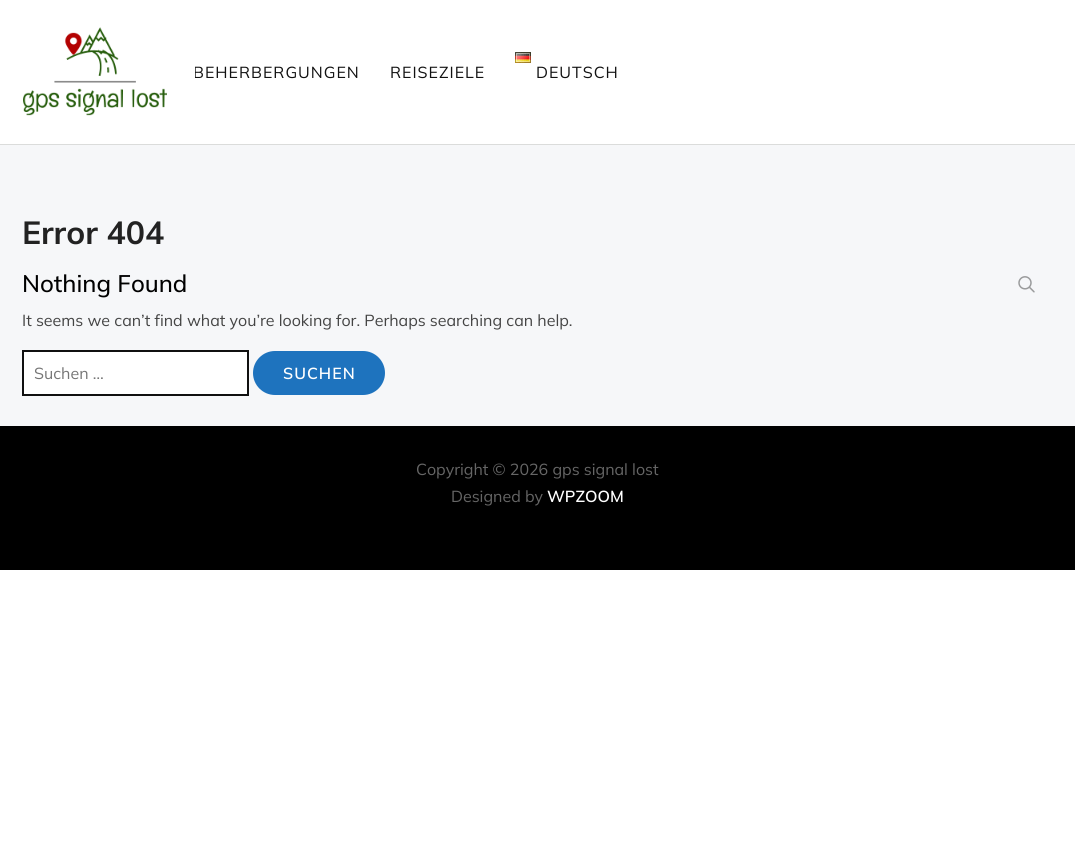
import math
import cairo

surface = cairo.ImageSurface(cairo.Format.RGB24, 1075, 842)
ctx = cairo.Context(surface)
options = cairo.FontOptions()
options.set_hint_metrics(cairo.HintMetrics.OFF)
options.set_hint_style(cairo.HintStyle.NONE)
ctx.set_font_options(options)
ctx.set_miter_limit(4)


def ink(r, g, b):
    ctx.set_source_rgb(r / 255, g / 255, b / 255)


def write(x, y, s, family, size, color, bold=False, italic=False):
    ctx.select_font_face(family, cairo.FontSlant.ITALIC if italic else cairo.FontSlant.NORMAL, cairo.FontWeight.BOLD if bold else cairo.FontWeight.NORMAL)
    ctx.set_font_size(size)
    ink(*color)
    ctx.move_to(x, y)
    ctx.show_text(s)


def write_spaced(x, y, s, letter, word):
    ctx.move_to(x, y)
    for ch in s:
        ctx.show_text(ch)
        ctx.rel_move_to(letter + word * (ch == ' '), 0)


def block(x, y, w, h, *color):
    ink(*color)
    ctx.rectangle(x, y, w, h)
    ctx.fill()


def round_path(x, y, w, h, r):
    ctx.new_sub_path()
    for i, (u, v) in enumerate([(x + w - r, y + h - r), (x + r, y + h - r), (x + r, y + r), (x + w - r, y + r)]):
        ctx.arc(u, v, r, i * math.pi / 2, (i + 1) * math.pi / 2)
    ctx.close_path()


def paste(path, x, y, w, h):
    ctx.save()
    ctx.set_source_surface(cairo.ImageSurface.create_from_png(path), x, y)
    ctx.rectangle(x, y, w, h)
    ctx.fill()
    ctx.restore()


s1 = dict(family="Mulish", size=32, color=(34, 34, 34), bold=True)
s2 = dict(family="Mulish Medium", size=24, color=(0, 0, 0))
s3 = dict(family="Mulish", size=16, color=(68, 68, 68))
s4 = dict(family="Mulish", size=16, color=(117, 117, 117))
s5 = dict(family="Mulish", size=16, color=(102, 102, 102))
s6 = dict(family="Mulish SemiBold", size=16, color=(255, 255, 255))

ink(255, 255, 255)
ctx.paint()
block(0, 144, 1075, 1, 219, 220, 219)
paste("pic1.png", 23, 27, 144, 89)
ctx.save()
ctx.rectangle(195, 52, 423, 41)
ctx.clip()
ctx.select_font_face("Mulish")
ctx.set_font_size(16)
ink(17, 17, 17)
write_spaced(193, 78, "BEHERBERGUNGEN", 1, 0)
ctx.restore()
ctx.select_font_face("Mulish")
ctx.set_font_size(16)
ink(17, 17, 17)
write_spaced(390, 78, "REISEZIELE", 1, 0)
paste("pic2.png", 515, 52, 16, 11)
write_spaced(536, 78, "DEUTSCH", 1, 0)
block(0, 145, 1075, 281, 246, 247, 249)
paste("pic3.png", 1018, 276, 17, 17)
write(22, 244, "Error 404", **s1)
write(22, 292, "Nothing Found", **s2)
write(22, 326, "It seems we can’t find what you’re looking for. Perhaps searching can help.", **s3)
ink(255, 255, 255)
ctx.rectangle(23, 351, 225, 44)
ctx.fill_preserve()
ink(16, 16, 16)
ctx.stroke()
write(34, 379, "Suchen …", **s4)
ink(30, 115, 190)
round_path(253, 351, 132, 44, 22)
ctx.fill()
ctx.select_font_face("Mulish SemiBold")
ink(255, 255, 255)
write_spaced(283, 379, "SUCHEN", 1, 0)
block(0, 426, 1075, 144, 0, 0, 0)
write(416, 475, "Copyright © 2026 gps signal lost", **s5)
write(451, 502, "Designed by", **s5)
write(547, 502, "WPZOOM", **s6)
surface.write_to_png("screenshot.png")
